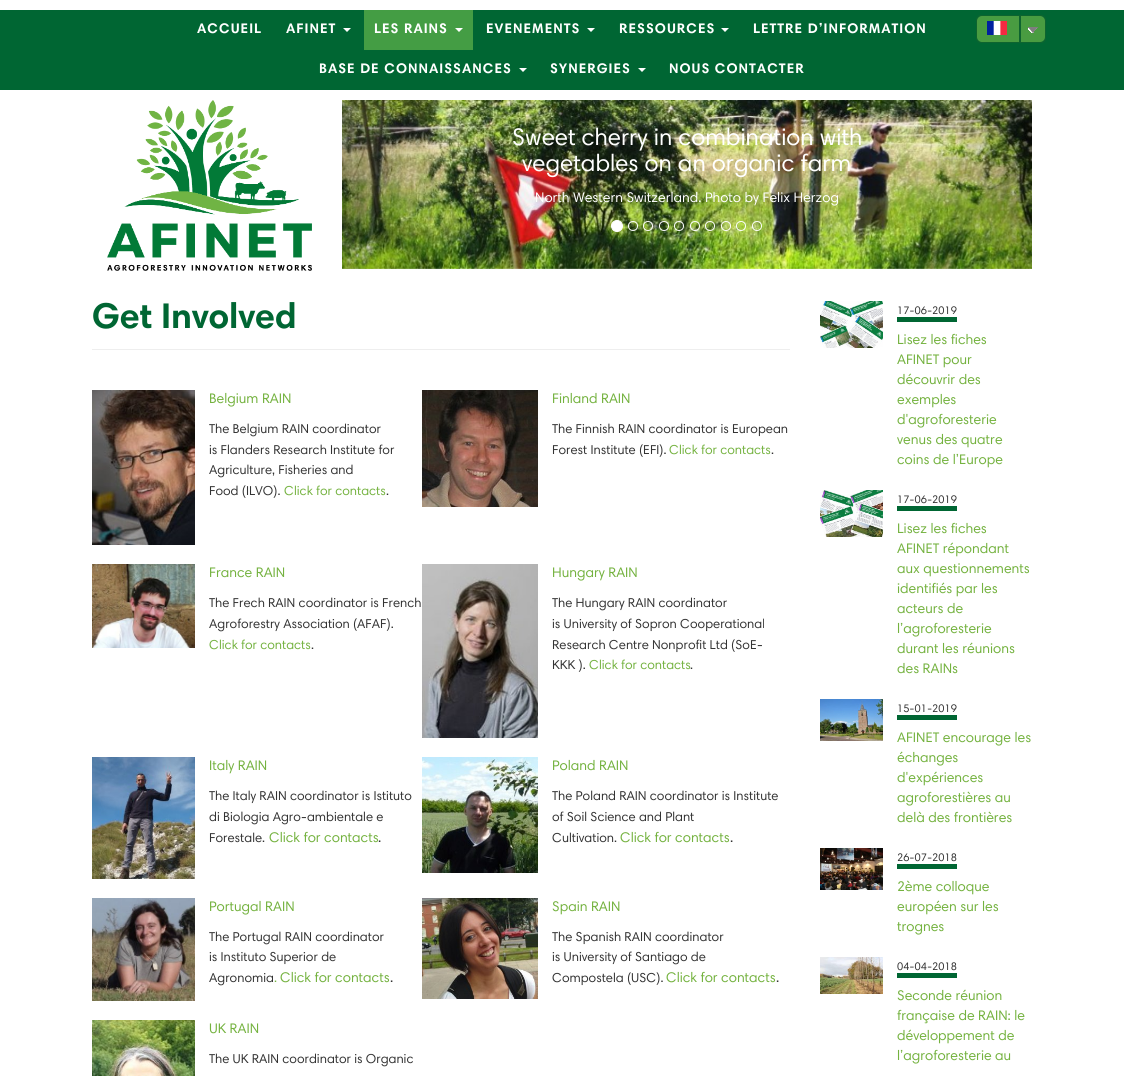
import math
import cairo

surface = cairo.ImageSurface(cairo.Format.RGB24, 1124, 1076)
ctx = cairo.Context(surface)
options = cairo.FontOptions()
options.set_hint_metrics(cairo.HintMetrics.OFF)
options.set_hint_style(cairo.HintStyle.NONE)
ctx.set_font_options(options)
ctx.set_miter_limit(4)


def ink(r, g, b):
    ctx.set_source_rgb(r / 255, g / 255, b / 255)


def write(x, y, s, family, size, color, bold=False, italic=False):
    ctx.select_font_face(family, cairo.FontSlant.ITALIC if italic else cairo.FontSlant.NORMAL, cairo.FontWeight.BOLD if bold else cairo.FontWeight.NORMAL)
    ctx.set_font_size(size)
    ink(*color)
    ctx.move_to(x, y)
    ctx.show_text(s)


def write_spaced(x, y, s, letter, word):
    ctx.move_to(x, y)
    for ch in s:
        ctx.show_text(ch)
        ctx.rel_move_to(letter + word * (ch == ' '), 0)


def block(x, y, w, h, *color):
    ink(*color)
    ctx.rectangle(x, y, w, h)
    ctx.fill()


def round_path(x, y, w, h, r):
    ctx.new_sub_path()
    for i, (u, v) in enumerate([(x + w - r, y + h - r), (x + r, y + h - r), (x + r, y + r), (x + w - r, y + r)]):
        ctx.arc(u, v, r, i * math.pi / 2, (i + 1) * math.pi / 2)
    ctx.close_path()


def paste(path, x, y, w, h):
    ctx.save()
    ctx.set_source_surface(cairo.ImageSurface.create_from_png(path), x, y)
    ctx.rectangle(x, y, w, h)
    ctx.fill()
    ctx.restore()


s1 = dict(family="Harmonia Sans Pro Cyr", size=24, color=(255, 255, 255))
s2 = dict(family="Harmonia Sans Pro Cyr", size=14, color=(255, 255, 255))
s3 = dict(family="Harmonia Sans Pro Cyr", size=36, color=(0, 102, 51), bold=True)
s4 = dict(family="Harmonia Sans Pro Cyr", size=14, color=(116, 178, 63))
s5 = dict(family="Harmonia Sans Pro Cyr", size=13, color=(51, 51, 51))
s6 = dict(family="Harmonia Sans Pro Cyr", size=13, color=(116, 178, 63))
s7 = dict(family="Harmonia Sans Pro Cyr", size=14, color=(51, 51, 51))
s8 = dict(family="Harmonia Sans Pro Cyr", size=11, color=(51, 51, 51))

ink(255, 255, 255)
ctx.paint()
block(0, 10, 1124, 80, 0, 102, 51)
ctx.select_font_face("Harmonia Sans Pro Cyr", cairo.FontSlant.NORMAL, cairo.FontWeight.BOLD)
ctx.set_font_size(14)
ink(255, 255, 255)
write_spaced(197, 33, "ACCUEIL", 1, 0)
write_spaced(286, 33, "AFINET", 1, 0)
ctx.new_path()
ctx.move_to(343, 28)
ctx.line_to(351, 28)
ctx.line_to(347, 32)
ctx.close_path()
ctx.fill()
block(364, 10, 109, 40, 68, 157, 68)
ink(255, 255, 255)
write_spaced(374, 33, "LES RAINS", 1, 0)
ctx.new_path()
ctx.move_to(455, 28)
ctx.line_to(463, 28)
ctx.line_to(459, 32)
ctx.close_path()
ctx.fill()
write_spaced(486, 33, "EVENEMENTS", 1, 0)
ctx.new_path()
ctx.move_to(587, 28)
ctx.line_to(595, 28)
ctx.line_to(591, 32)
ctx.close_path()
ctx.fill()
write_spaced(619, 33, "RESSOURCES", 1, 0)
ctx.new_path()
ctx.move_to(721, 28)
ctx.line_to(729, 28)
ctx.line_to(725, 32)
ctx.close_path()
ctx.fill()
write_spaced(753, 33, "LETTRE D’INFORMATION", 1, 0)
write_spaced(319, 73, "BASE DE CONNAISSANCES", 1, 0)
ctx.new_path()
ctx.move_to(519, 68)
ctx.line_to(527, 68)
ctx.line_to(523, 72)
ctx.close_path()
ctx.fill()
write_spaced(550, 73, "SYNERGIES", 1, 0)
ctx.new_path()
ctx.move_to(638, 68)
ctx.line_to(646, 68)
ctx.line_to(642, 72)
ctx.close_path()
ctx.fill()
write_spaced(669, 73, "NOUS CONTACTER", 1, 0)
round_path(976.5, 15.5, 69, 27, 4.5)
ink(14, 100, 47)
ctx.set_line_width(1)
ctx.stroke()
ink(73, 156, 65)
round_path(977, 16, 68, 26, 5)
ctx.fill()
paste("pic1.png", 987, 21, 20, 14)
block(1019, 16, 2, 26, 14, 100, 47)
paste("pic2.png", 1028, 27, 10, 6)
paste("pic3.png", 107, 100, 205, 171)
paste("pic4.png", 342, 100, 690, 169)
gradient = cairo.LinearGradient(342, 185, 446, 185)
gradient.add_color_stop_rgba(0, 0, 0, 0, 0.25)
gradient.add_color_stop_rgba(1, 0, 0, 0, 0)
ctx.set_source(gradient)
ctx.rectangle(342, 100, 95, 169)
ctx.fill()
write(512, 145, "Sweet cherry in combination with", **s1)
write(522, 171, "vegetables on an organic farm", **s1)
write(535, 202, "North Western Switzerland. Photo by Felix Herzog", **s2)
gradient = cairo.LinearGradient(929, 185, 1032, 185)
gradient.add_color_stop_rgba(0, 0, 0, 0, 0)
gradient.add_color_stop_rgba(1, 0, 0, 0, 0.25)
ctx.set_source(gradient)
ctx.rectangle(938, 100, 94, 169)
ctx.fill()
ink(255, 255, 255)
ctx.arc(617, 226, 5.5, 0, 2 * math.pi)
ctx.fill_preserve()
ctx.stroke()
ctx.arc(633, 226, 4.5, 0, 2 * math.pi)
ctx.stroke()
ctx.arc(648, 226, 4.5, 0, 2 * math.pi)
ctx.stroke()
ctx.arc(664, 226, 4.5, 0, 2 * math.pi)
ctx.stroke()
ctx.arc(679, 226, 4.5, 0, 2 * math.pi)
ctx.stroke()
ctx.arc(695, 226, 4.5, 0, 2 * math.pi)
ctx.stroke()
ctx.arc(710, 226, 4.5, 0, 2 * math.pi)
ctx.stroke()
ctx.arc(726, 226, 4.5, 0, 2 * math.pi)
ctx.stroke()
ctx.arc(741, 226, 4.5, 0, 2 * math.pi)
ctx.stroke()
ctx.arc(757, 226, 4.5, 0, 2 * math.pi)
ctx.stroke()
block(92, 349, 698, 1, 238, 238, 238)
write(92, 328, "Get Involved", **s3)
paste("pic5.png", 92, 390, 103, 155)
write(209, 403, "Belgium RAIN", **s4)
write(209, 433, "The Belgium RAIN coordinator", **s5)
write(209, 454, "is Flanders Research Institute for", **s5)
write(209, 474, "Agriculture, Fisheries and", **s5)
write(209, 495, "Food (ILVO).", **s5)
write(284, 495, "Click for contacts", **s6)
write(386, 495, ".", **s5)
paste("pic6.png", 422, 390, 116, 117)
write(552, 403, "Finland RAIN", **s4)
write(552, 433, "The Finnish RAIN coordinator is European", **s5)
write(552, 454, "Forest Institute (EFI).", **s5)
write(669, 454, "Click for contacts", **s6)
write(771, 454, ".", **s5)
paste("pic7.png", 92, 564, 103, 84)
write(209, 577, "France RAIN", **s4)
write(209, 607, "The Frech RAIN coordinator is French", **s5)
write(209, 628, "Agroforestry Association (AFAF).", **s5)
write(209, 649, "Click for contacts", **s6)
write(311, 649, ".", **s5)
paste("pic8.png", 422, 564, 116, 174)
write(552, 577, "Hungary RAIN", **s4)
write(552, 607, "The Hungary RAIN coordinator", **s5)
write(552, 628, "is University of Sopron Cooperational", **s5)
write(552, 649, "Research Centre Nonprofit Ltd (SoE-", **s5)
write(552, 669, "KKK ).", **s5)
write(589, 669, "Click for contacts", **s6)
write(690, 669, ".", **s5)
paste("pic9.png", 92, 757, 103, 122)
write(209, 770, "Italy RAIN", **s4)
write(209, 800, "The Italy RAIN coordinator is Istituto", **s5)
write(209, 821, "di Biologia Agro-ambientale e", **s5)
write(209, 842, "Forestale.", **s5)
write(269, 842, "Click for contacts", **s4)
write(378, 842, ".", **s7)
paste("pic10.png", 422, 757, 116, 116)
write(552, 770, "Poland RAIN", **s4)
write(552, 800, "The Poland RAIN coordinator is Institute", **s5)
write(552, 821, "of Soil Science and Plant", **s5)
write(552, 842, "Cultivation.", **s5)
write(620, 842, "Click for contacts", **s4)
write(730, 842, ".", **s7)
paste("pic11.png", 92, 898, 103, 103)
write(209, 911, "Portugal RAIN", **s4)
write(209, 941, "The Portugal RAIN coordinator", **s5)
write(209, 961, "is Instituto Superior de", **s5)
write(209, 982, "Agronomia", **s5)
write(274, 982, ".", **s6)
write(280, 982, "Click for contacts", **s4)
write(390, 982, ".", **s7)
paste("pic12.png", 422, 898, 116, 101)
write(552, 911, "Spain RAIN", **s4)
write(552, 941, "The Spanish RAIN coordinator", **s5)
write(552, 961, "is University of Santiago de", **s5)
write(552, 982, "Compostela (USC).", **s5)
write(666, 982, "Click for contacts", **s4)
write(776, 982, ".", **s7)
paste("pic13.png", 92, 1020, 103, 56)
write(209, 1033, "UK RAIN", **s4)
write(209, 1063, "The UK RAIN coordinator is Organic", **s5)
paste("pic14.png", 820, 301, 63, 47)
write(897, 314, "17-06-2019", **s8)
block(897, 317, 60, 5, 0, 102, 51)
write(897, 344, "Lisez les fiches", **s4)
write(897, 364, "AFINET pour", **s4)
write(897, 384, "découvrir des", **s4)
write(897, 404, "exemples", **s4)
write(897, 424, "d'agroforesterie", **s4)
write(897, 444, "venus des quatre", **s4)
write(897, 464, "coins de l’Europe", **s4)
paste("pic15.png", 820, 490, 63, 47)
write(897, 503, "17-06-2019", **s8)
block(897, 506, 60, 5, 0, 102, 51)
write(897, 533, "Lisez les fiches", **s4)
write(897, 553, "AFINET répondant", **s4)
write(897, 573, "aux questionnements", **s4)
write(897, 593, "identifiés par les", **s4)
write(897, 613, "acteurs de", **s4)
write(897, 633, "l’agroforesterie", **s4)
write(897, 653, "durant les réunions", **s4)
write(897, 673, "des RAINs", **s4)
paste("pic16.png", 820, 699, 63, 42)
write(897, 712, "15-01-2019", **s8)
block(897, 715, 60, 5, 0, 102, 51)
write(897, 742, "AFINET encourage les", **s4)
write(897, 762, "échanges", **s4)
write(897, 782, "d'expériences", **s4)
write(897, 802, "agroforestières au", **s4)
write(897, 822, "delà des frontières", **s4)
paste("pic17.png", 820, 848, 63, 42)
write(897, 861, "26-07-2018", **s8)
block(897, 864, 60, 5, 0, 102, 51)
write(897, 891, "2ème colloque", **s4)
write(897, 911, "européen sur les", **s4)
write(897, 931, "trognes", **s4)
paste("pic18.png", 820, 957, 63, 37)
write(897, 970, "04-04-2018", **s8)
block(897, 973, 60, 5, 0, 102, 51)
write(897, 1000, "Seconde réunion", **s4)
write(897, 1020, "française de RAIN: le", **s4)
write(897, 1040, "développement de", **s4)
write(897, 1060, "l’agroforesterie au", **s4)
surface.write_to_png("screenshot.png")
